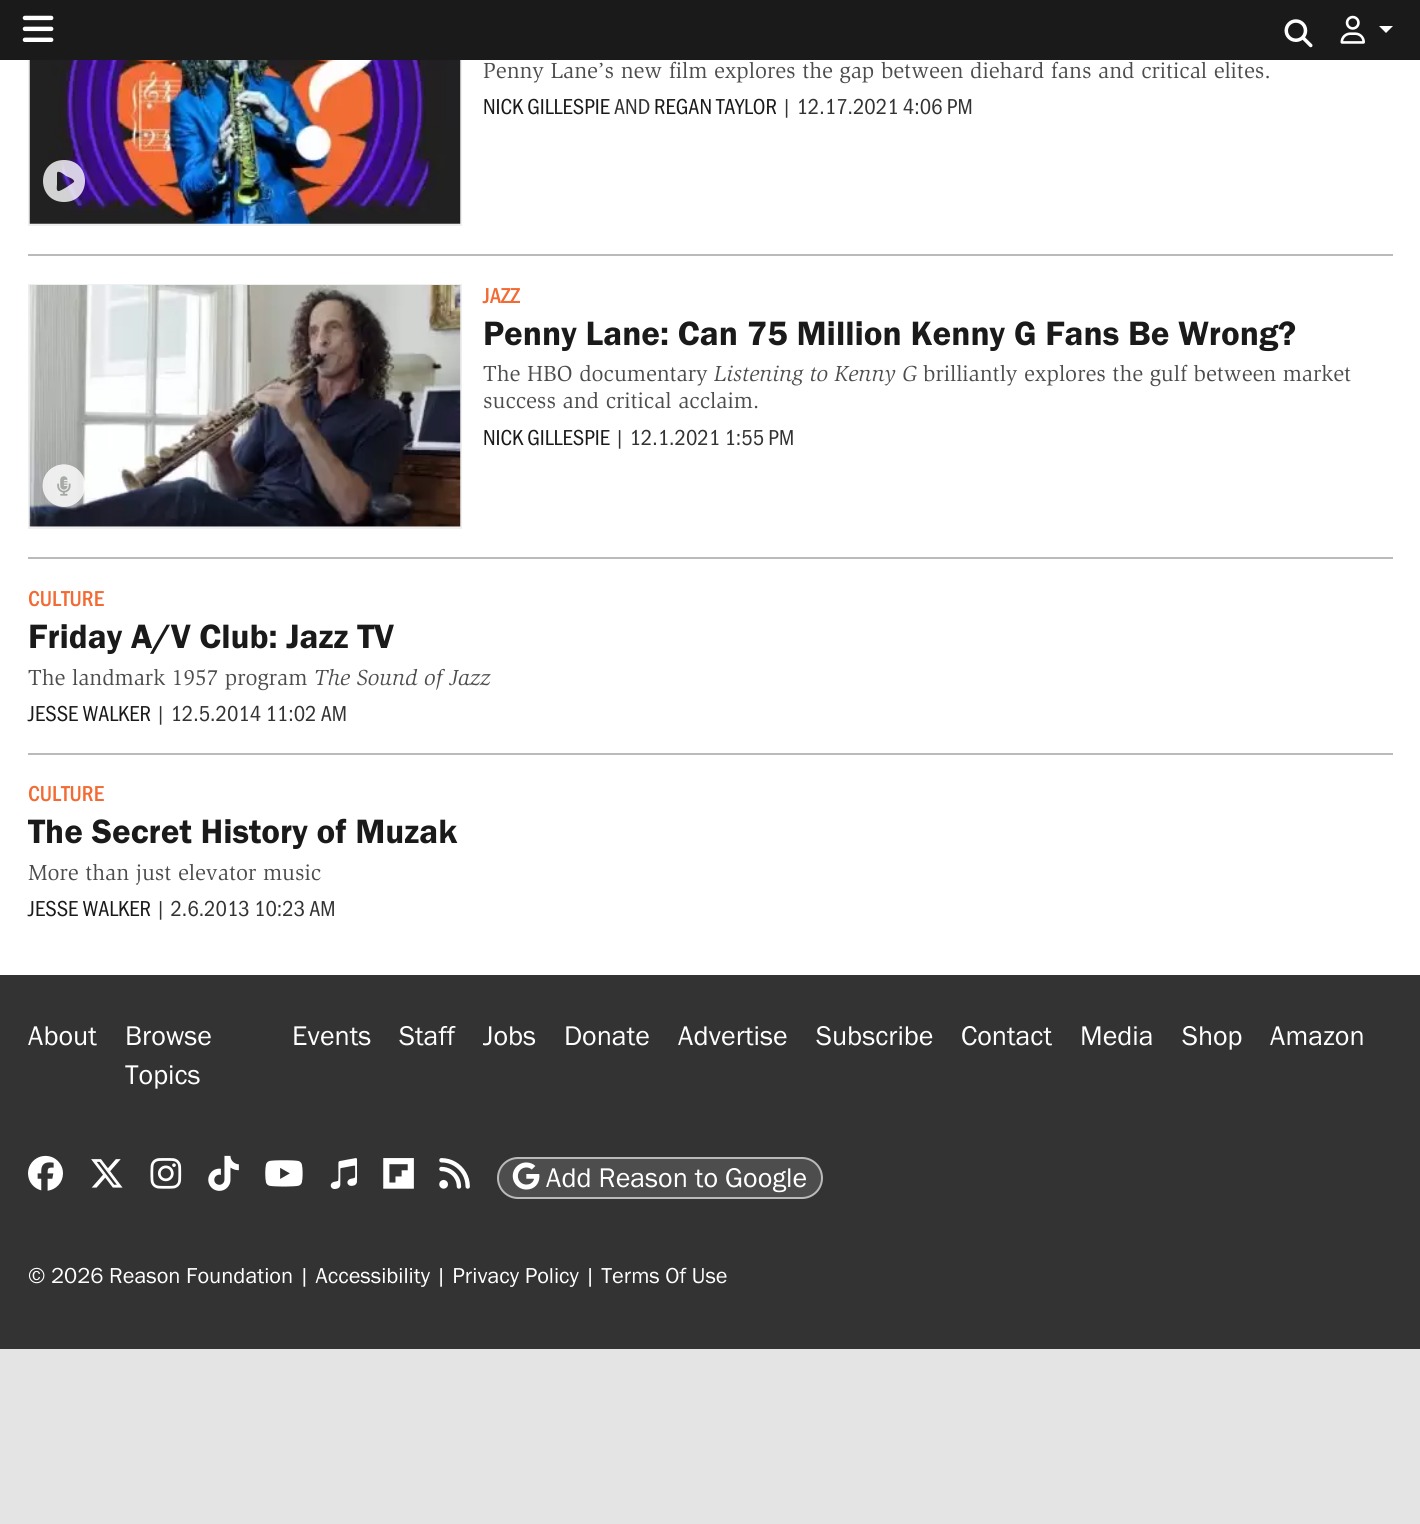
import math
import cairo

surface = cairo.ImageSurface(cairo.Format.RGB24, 1420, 1524)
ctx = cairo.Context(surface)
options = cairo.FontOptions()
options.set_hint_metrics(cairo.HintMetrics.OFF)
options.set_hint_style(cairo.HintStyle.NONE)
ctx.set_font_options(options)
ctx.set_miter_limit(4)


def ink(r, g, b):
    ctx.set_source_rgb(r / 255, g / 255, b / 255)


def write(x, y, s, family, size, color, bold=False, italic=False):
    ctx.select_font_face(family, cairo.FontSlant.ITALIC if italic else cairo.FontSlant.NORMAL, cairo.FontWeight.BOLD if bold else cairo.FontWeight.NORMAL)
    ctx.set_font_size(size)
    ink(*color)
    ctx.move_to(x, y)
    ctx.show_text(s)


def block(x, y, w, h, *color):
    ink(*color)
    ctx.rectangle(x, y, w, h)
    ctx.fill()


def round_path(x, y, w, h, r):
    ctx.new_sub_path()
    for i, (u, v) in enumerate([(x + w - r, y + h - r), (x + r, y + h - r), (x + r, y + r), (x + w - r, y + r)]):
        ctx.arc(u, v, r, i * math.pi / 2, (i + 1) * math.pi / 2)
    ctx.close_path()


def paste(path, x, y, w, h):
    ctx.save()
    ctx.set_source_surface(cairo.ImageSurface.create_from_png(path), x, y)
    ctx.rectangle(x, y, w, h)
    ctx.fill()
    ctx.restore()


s1 = dict(family="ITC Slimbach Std", size=22.4, color=(77, 77, 77))
s2 = dict(family="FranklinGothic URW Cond", size=22.4, color=(26, 26, 26))
s3 = dict(family="FranklinGothic URW Cond", size=22.4, color=(51, 51, 51))
s4 = dict(family="FranklinGothic URW Cond Medium", size=22.4, color=(243, 107, 52))
s5 = dict(family="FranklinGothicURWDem", size=35, color=(26, 26, 26))
s6 = dict(family="ITC Slimbach Std", size=22.4, color=(77, 77, 77), italic=True)
s7 = dict(family="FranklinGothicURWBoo", size=28, color=(255, 255, 255))
s8 = dict(family="FranklinGothicURWBoo", size=22.4, color=(255, 255, 255))

ink(255, 255, 255)
ctx.paint()
ctx.rectangle(29, -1, 432, 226)
ink(239, 239, 239)
ctx.stroke()
block(0, 0, 1420, 60, 26, 26, 26)
paste("pic1.png", 22, 15, 32, 27)
paste("pic2.png", 1284, 19, 29, 29)
paste("pic3.png", 1340, 15, 25, 29)
ink(255, 255, 255)
ctx.new_path()
ctx.move_to(1379, 26)
ctx.line_to(1393, 26)
ctx.line_to(1386, 33)
ctx.close_path()
ctx.fill()
block(28, 254, 1365, 2, 186, 186, 186)
paste("pic4.png", 29, 60, 432, 164)
ctx.set_source_rgba(1, 1, 1, 0.8)
ctx.new_path()
ctx.move_to(64, 160)
ctx.curve_to(36, 160, 36, 202, 64, 202)
ctx.curve_to(92, 202, 92, 160, 64, 160)
ctx.close_path()
ctx.move_to(74, 182)
ctx.curve_to(73, 183, 60, 192, 58, 191)
ctx.curve_to(56, 190, 57, 186, 57, 184)
ctx.line_to(57, 173)
ctx.curve_to(58, 169, 66, 176, 66, 176)
ctx.curve_to(68, 177, 75, 179, 74, 182)
ctx.close_path()
ctx.fill()
write(483, 78, "Penny Lane’s new film explores the gap between diehard fans and critical elites.", **s1)
write(483, 114, "NICK GILLESPIE", **s2)
write(614, 114, "AND", **s3)
write(654, 114, "REGAN TAYLOR", **s2)
write(781, 114, "| 12.17.2021 4:06 PM", **s3)
block(28, 557, 1365, 2, 186, 186, 186)
ctx.rectangle(29, 285, 432, 243)
ink(239, 239, 239)
ctx.stroke()
paste("pic5.png", 29, 285, 432, 242)
paste("pic6.png", 42, 464, 43, 43)
write(483, 303, "JAZZ", **s4)
write(483, 345, "Penny Lane: Can 75 Million Kenny G Fans Be Wrong?", **s5)
write(483, 381, "The HBO documentary", **s1)
write(714, 381, "Listening to Kenny G", **s6)
write(923, 381, "brilliantly explores the gulf between market", **s1)
write(483, 408, "success and critical acclaim.", **s1)
write(483, 445, "NICK GILLESPIE", **s2)
write(614, 445, "| 12.1.2021 1:55 PM", **s3)
block(28, 753, 1365, 2, 186, 186, 186)
write(28, 606, "CULTURE", **s4)
write(28, 648, "Friday A/V Club: Jazz TV", **s5)
write(28, 685, "The landmark 1957 program", **s1)
write(314, 685, "The Sound of Jazz", **s6)
write(28, 721, "JESSE WALKER", **s2)
write(155, 721, "| 12.5.2014 11:02 AM", **s3)
write(28, 801, "CULTURE", **s4)
write(28, 843, "The Secret History of Muzak", **s5)
write(28, 880, "More than just elevator music", **s1)
write(28, 916, "JESSE WALKER", **s2)
write(155, 916, "| 2.6.2013 10:23 AM", **s3)
block(0, 975, 1420, 549, 51, 51, 51)
write(28, 1045, "About", **s7)
write(125, 1045, "Browse", **s7)
write(125, 1084, "Topics", **s7)
write(292, 1045, "Events", **s7)
write(399, 1045, "Staff", **s7)
write(483, 1045, "Jobs", **s7)
write(564, 1045, "Donate", **s7)
write(678, 1045, "Advertise", **s7)
write(816, 1045, "Subscribe", **s7)
write(961, 1045, "Contact", **s7)
write(1080, 1045, "Media", **s7)
write(1182, 1045, "Shop", **s7)
write(1270, 1045, "Amazon", **s7)
paste("pic7.png", 28, 1155, 35, 36)
paste("pic8.png", 91, 1159, 32, 29)
paste("pic9.png", 150, 1158, 32, 31)
paste("pic10.png", 208, 1155, 31, 36)
paste("pic11.png", 265, 1160, 38, 27)
paste("pic12.png", 330, 1158, 27, 31)
paste("pic13.png", 383, 1158, 31, 31)
paste("pic14.png", 439, 1158, 31, 31)
ink(77, 77, 77)
round_path(498, 1158, 324, 40, 20)
ctx.fill_preserve()
ink(186, 186, 186)
ctx.stroke()
paste("pic15.png", 512, 1162, 28, 28)
write(546, 1187, "Add Reason to Google", **s7)
write(28, 1283, "© 2026 Reason Foundation | Accessibility | Privacy Policy | Terms Of Use", **s8)
ctx.set_source_rgba(0.969, 0.969, 0.969, 0.9)
ctx.rectangle(0, 1349, 1420, 175)
ctx.fill()
surface.write_to_png("screenshot.png")
